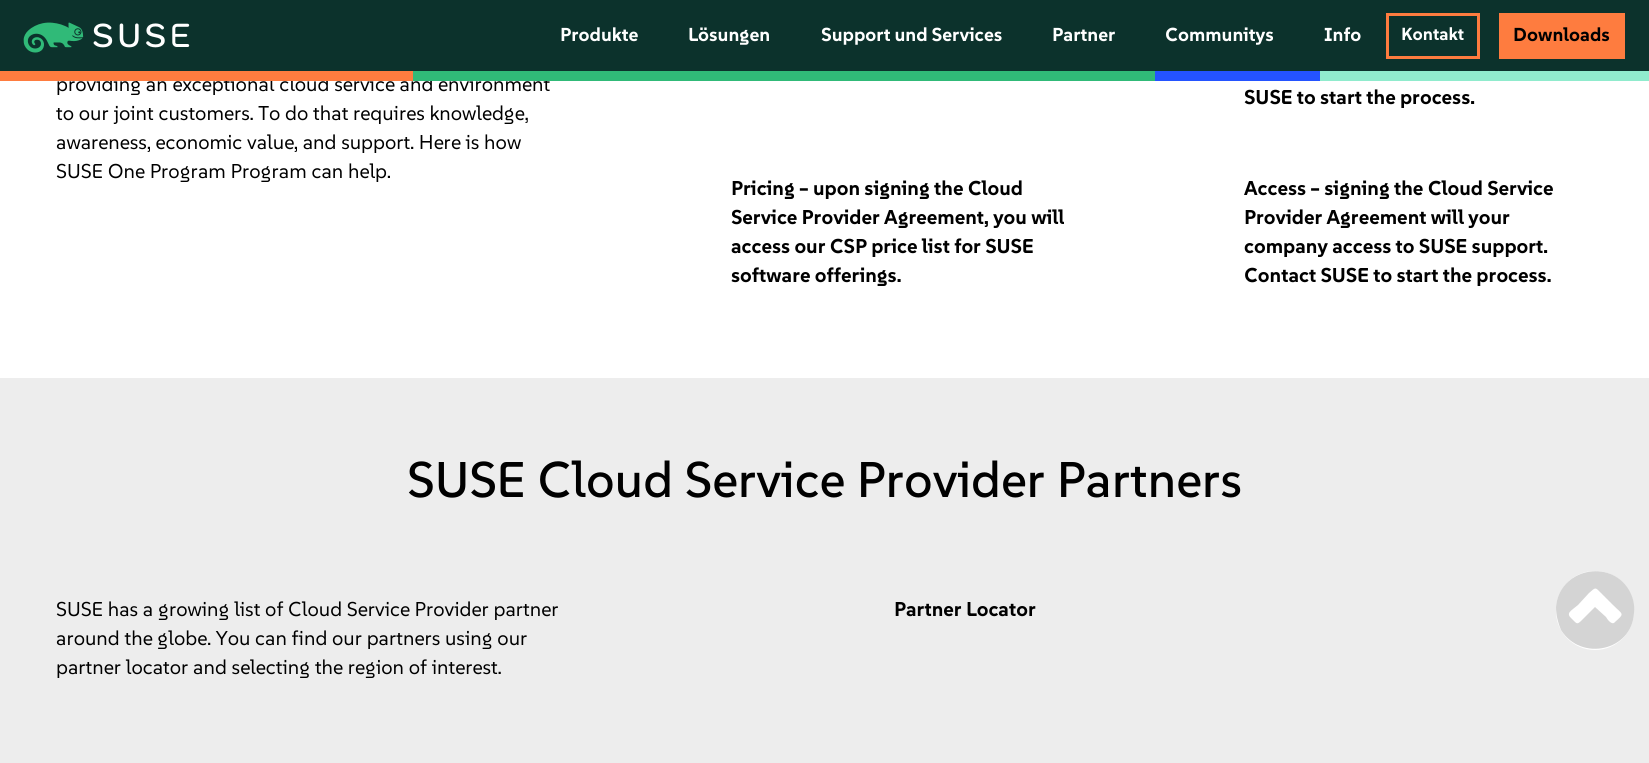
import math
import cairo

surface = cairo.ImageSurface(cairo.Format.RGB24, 1649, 763)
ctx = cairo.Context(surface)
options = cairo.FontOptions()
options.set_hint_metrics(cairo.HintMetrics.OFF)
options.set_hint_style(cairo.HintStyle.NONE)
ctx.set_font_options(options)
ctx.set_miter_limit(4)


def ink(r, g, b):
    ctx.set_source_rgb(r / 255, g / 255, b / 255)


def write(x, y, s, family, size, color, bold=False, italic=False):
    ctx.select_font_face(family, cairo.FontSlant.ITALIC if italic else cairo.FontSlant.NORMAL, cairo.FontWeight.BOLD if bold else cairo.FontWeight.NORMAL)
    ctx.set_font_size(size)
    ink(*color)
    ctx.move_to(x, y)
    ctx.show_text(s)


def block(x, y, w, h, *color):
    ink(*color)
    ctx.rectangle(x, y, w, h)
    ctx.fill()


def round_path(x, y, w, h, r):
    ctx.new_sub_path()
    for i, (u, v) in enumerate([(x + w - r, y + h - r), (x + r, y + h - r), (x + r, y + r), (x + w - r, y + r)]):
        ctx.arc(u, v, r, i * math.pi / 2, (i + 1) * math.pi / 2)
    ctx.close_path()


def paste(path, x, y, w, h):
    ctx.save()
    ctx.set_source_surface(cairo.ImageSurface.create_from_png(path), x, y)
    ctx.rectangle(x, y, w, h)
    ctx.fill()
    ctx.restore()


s1 = dict(family="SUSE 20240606", size=18.75, color=(255, 255, 255), bold=True)
s2 = dict(family="SUSE 20240606", size=17.5, color=(255, 255, 255), bold=True)
s3 = dict(family="SUSE 20240606", size=18.75, color=(0, 0, 0), bold=True)
s4 = dict(family="SUSE", size=20, color=(0, 0, 0))
s5 = dict(family="SUSE 20240606", size=20, color=(0, 0, 0), bold=True)
s6 = dict(family="SUSE 20240606 Medium", size=50, color=(0, 0, 0))

ink(255, 255, 255)
ctx.paint()
block(0, 0, 1649, 71, 12, 50, 44)
paste("pic1.png", 23, 22, 167, 31)
write(560, 41, "Produkte", **s1)
write(688, 41, "Lösungen", **s1)
write(821, 41, "Support und Services", **s1)
write(1052, 41, "Partner", **s1)
write(1165, 41, "Communitys", **s1)
write(1324, 41, "Info", **s1)
ctx.rectangle(1387.5, 14.5, 91, 43)
ink(254, 124, 63)
ctx.set_line_width(3)
ctx.stroke()
write(1401, 40, "Kontakt", **s2)
block(1499, 13, 126, 46, 254, 124, 63)
write(1513, 41, "Downloads", **s3)
write(56, 91, "providing an exceptional cloud service and environment", **s4)
block(0, 71, 413, 10, 254, 124, 63)
block(413, 71, 742, 10, 48, 186, 120)
block(1155, 71, 165, 10, 36, 83, 255)
block(1320, 71, 329, 10, 144, 235, 205)
write(56, 120, "to our joint customers. To do that requires knowledge,", **s4)
write(56, 149, "awareness, economic value, and support. Here is how", **s4)
write(56, 178, "SUSE One Program Program can help.", **s4)
write(1244, 104, "SUSE to start the process.", **s5)
write(731, 195, "Pricing – upon signing the Cloud", **s5)
write(731, 224, "Service Provider Agreement, you will", **s5)
write(731, 253, "access our CSP price list for SUSE", **s5)
write(731, 282, "software offerings.", **s5)
write(1244, 195, "Access – signing the Cloud Service", **s5)
write(1244, 224, "Provider Agreement will your", **s5)
write(1244, 253, "company access to SUSE support.", **s5)
write(1244, 282, "Contact SUSE to start the process.", **s5)
block(0, 378, 1649, 385, 237, 237, 237)
write(407, 497, "SUSE Cloud Service Provider Partners", **s6)
write(56, 616, "SUSE has a growing list of Cloud Service Provider partner", **s4)
write(56, 645, "around the globe. You can find our partners using our", **s4)
write(56, 674, "partner locator and selecting the region of interest.", **s4)
write(894, 616, "Partner Locator", **s5)
ink(255, 255, 255)
round_path(1556, 571, 78, 79, 39)
ctx.fill()
ink(212, 212, 212)
ctx.new_path()
ctx.move_to(1615, 622)
ctx.curve_to(1625, 613, 1623, 615, 1613, 605)
ctx.line_to(1601, 593)
ctx.curve_to(1595, 587, 1596, 587, 1589, 593)
ctx.line_to(1578, 605)
ctx.curve_to(1571, 611, 1565, 613, 1572, 619)
ctx.curve_to(1577, 624, 1577, 625, 1582, 620)
ctx.line_to(1595, 607)
ctx.line_to(1606, 617)
ctx.curve_to(1607, 619, 1612, 626, 1615, 622)
ctx.close_path()
ctx.move_to(1629, 590)
ctx.curve_to(1633, 597, 1635, 605, 1634, 613)
ctx.curve_to(1632, 651, 1581, 662, 1561, 630)
ctx.curve_to(1558, 623, 1556, 615, 1556, 607)
ctx.curve_to(1559, 569, 1610, 558, 1629, 590)
ctx.close_path()
ctx.fill()
surface.write_to_png("screenshot.png")
